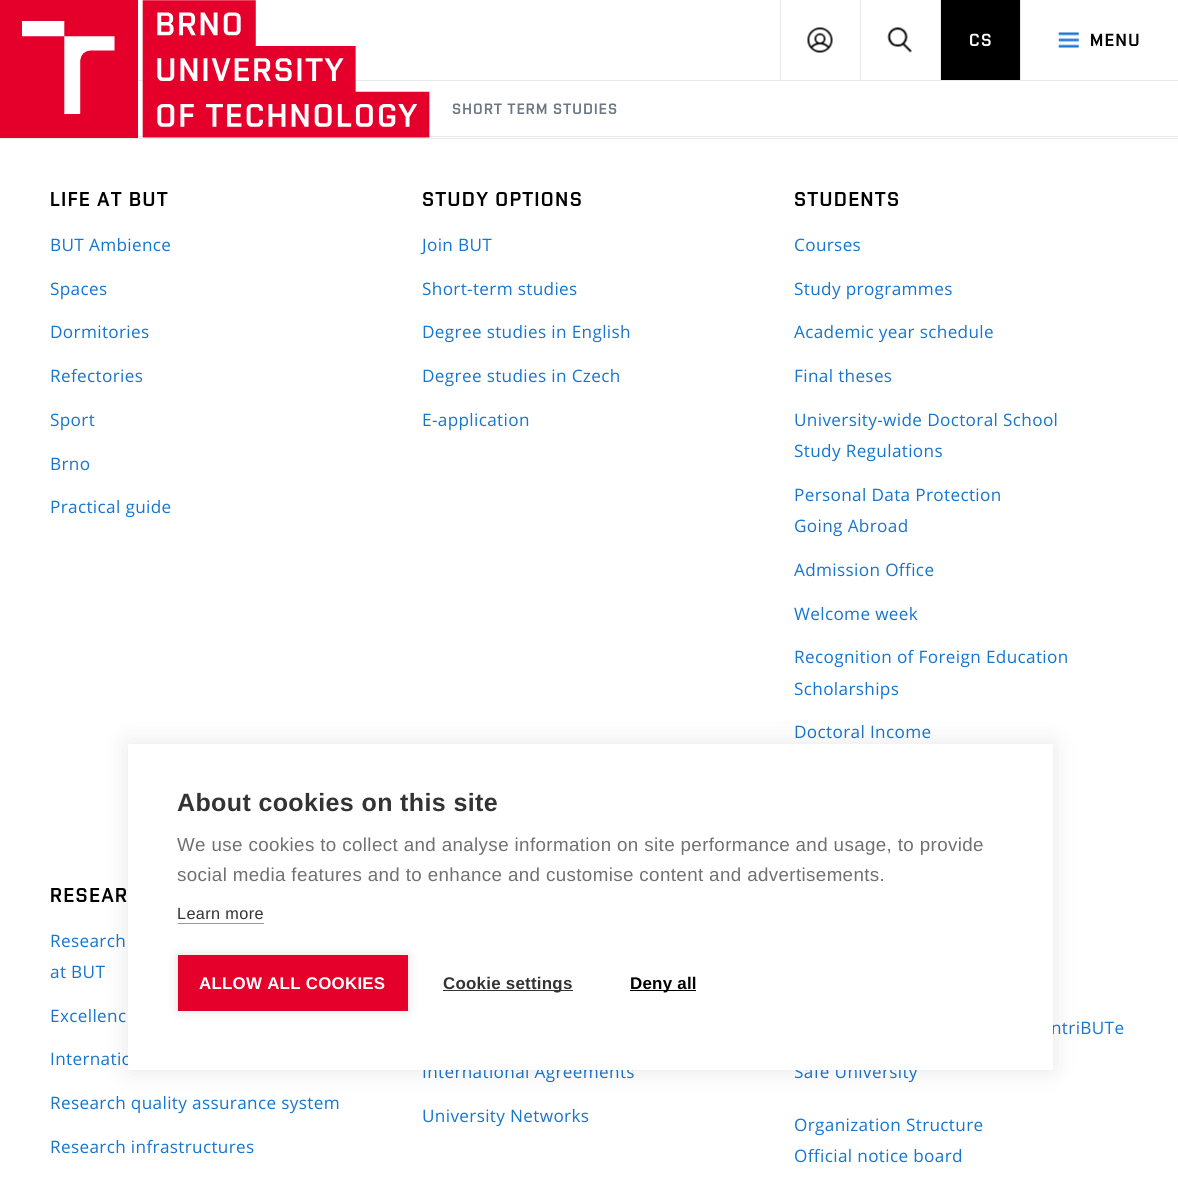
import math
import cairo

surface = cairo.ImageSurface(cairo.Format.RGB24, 1178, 1182)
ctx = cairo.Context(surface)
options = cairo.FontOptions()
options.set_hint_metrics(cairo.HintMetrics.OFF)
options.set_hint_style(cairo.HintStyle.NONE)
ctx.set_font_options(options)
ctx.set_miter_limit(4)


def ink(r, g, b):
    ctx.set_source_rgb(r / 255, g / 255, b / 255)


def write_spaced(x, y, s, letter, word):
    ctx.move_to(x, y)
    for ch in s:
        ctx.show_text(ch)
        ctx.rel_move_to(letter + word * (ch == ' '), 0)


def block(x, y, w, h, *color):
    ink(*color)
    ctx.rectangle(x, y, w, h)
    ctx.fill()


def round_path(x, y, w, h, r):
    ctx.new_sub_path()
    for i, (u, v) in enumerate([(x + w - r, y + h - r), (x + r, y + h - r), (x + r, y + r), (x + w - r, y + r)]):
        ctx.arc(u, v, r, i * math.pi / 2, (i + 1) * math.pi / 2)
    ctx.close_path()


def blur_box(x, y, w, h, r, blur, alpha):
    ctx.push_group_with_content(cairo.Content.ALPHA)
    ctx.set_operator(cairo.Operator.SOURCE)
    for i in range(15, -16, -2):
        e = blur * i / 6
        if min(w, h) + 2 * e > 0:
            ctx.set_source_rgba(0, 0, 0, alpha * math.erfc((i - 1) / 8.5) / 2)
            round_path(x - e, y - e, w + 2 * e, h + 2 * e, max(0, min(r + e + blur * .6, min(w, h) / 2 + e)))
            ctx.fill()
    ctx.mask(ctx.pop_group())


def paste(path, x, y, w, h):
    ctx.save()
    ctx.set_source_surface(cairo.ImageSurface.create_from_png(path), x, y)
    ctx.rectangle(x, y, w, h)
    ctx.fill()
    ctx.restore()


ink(255, 255, 255)
ctx.paint()
block(0, 0, 138, 138, 228, 0, 43)
paste("pic1.png", 22, 21, 93, 93)
block(138, 80, 1040, 1, 232, 234, 234)
block(138, 136, 1040, 1, 232, 234, 234)
paste("pic2.png", 142, 0, 288, 138)
block(780, 0, 1, 80, 232, 234, 234)
paste("pic3.png", 807, 27, 26, 26)
block(860, 0, 1, 80, 232, 234, 234)
paste("pic4.png", 887, 27, 25, 26)
block(940, 0, 1, 80, 232, 234, 234)
block(941, 0, 79, 80, 0, 0, 0)
ctx.select_font_face("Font")
ctx.set_font_size(17.5)
ink(255, 255, 255)
write_spaced(969, 46, "CS", 1.5, 0)
block(1020, 0, 1, 80, 232, 234, 234)
paste("pic5.png", 1058, 32, 21, 16)
ink(0, 0, 0)
write_spaced(1090, 46, "MENU", 1.5, 0)
ctx.set_font_size(15)
ink(108, 119, 132)
write_spaced(452, 114, "SHORT TERM STUDIES", 1.25, 0)
block(0, 138, 1178, 1, 232, 234, 234)
ctx.set_font_size(20)
ink(0, 0, 0)
write_spaced(50, 206, "LIFE AT BUT", 1.6, 0)
ctx.select_font_face("Open Sans")
ctx.set_font_size(17.5)
ink(22, 117, 207)
write_spaced(50, 251, "BUT Ambience", 0.35, 0)
write_spaced(50, 295, "Spaces", 0.35, 0)
write_spaced(50, 338, "Dormitories", 0.35, 0)
write_spaced(50, 382, "Refectories", 0.35, 0)
write_spaced(50, 426, "Sport", 0.35, 0)
write_spaced(50, 470, "Brno", 0.35, 0)
write_spaced(50, 513, "Practical guide", 0.35, 0)
ctx.select_font_face("Font")
ctx.set_font_size(20)
ink(0, 0, 0)
write_spaced(422, 206, "STUDY OPTIONS", 1.6, 0)
ctx.select_font_face("Open Sans")
ctx.set_font_size(17.5)
ink(22, 117, 207)
write_spaced(422, 251, "Join BUT", 0.35, 0)
write_spaced(422, 295, "Short-term studies", 0.35, 0)
write_spaced(422, 338, "Degree studies in English", 0.35, 0)
write_spaced(422, 382, "Degree studies in Czech", 0.35, 0)
write_spaced(422, 426, "E-application", 0.35, 0)
ctx.select_font_face("Font")
ctx.set_font_size(20)
ink(0, 0, 0)
write_spaced(794, 206, "STUDENTS", 1.6, 0)
ctx.select_font_face("Open Sans")
ctx.set_font_size(17.5)
ink(22, 117, 207)
write_spaced(794, 251, "Courses", 0.35, 0)
write_spaced(794, 295, "Study programmes", 0.35, 0)
write_spaced(794, 338, "Academic year schedule", 0.35, 0)
write_spaced(794, 382, "Final theses", 0.35, 0)
write_spaced(794, 426, "University-wide Doctoral School", 0.35, 0)
write_spaced(794, 457, "Study Regulations", 0.35, 0)
write_spaced(794, 501, "Personal Data Protection", 0.35, 0)
write_spaced(794, 532, "Going Abroad", 0.35, 0)
write_spaced(794, 576, "Admission Office", 0.35, 0)
write_spaced(794, 620, "Welcome week", 0.35, 0)
write_spaced(794, 663, "Recognition of Foreign Education", 0.35, 0)
write_spaced(794, 695, "Scholarships", 0.35, 0)
write_spaced(794, 738, "Doctoral Income", 0.35, 0)
ctx.select_font_face("Font")
ctx.set_font_size(20)
ink(0, 0, 0)
write_spaced(50, 902, "RESEAR", 1.6, 0)
ctx.select_font_face("Open Sans")
ctx.set_font_size(17.5)
ink(22, 117, 207)
write_spaced(50, 947, "Research", 0.35, 0)
write_spaced(50, 978, "at BUT", 0.35, 0)
write_spaced(50, 1022, "Excellenc", 0.35, 0)
write_spaced(50, 1065, "Internatio", 0.35, 0)
write_spaced(50, 1109, "Research quality assurance system", 0.35, 0)
write_spaced(50, 1153, "Research infrastructures", 0.35, 0)
write_spaced(422, 1078, "International Agreements", 0.35, 0)
write_spaced(422, 1122, "University Networks", 0.35, 0)
write_spaced(1051, 1034, "ntriBUTe", 0.35, 0)
write_spaced(794, 1078, "Safe University", 0.35, 0)
write_spaced(794, 1131, "Organization Structure", 0.35, 0)
write_spaced(794, 1162, "Official notice board", 0.35, 0)
ink(0, 0, 0)
blur_box(128, 744, 925, 326, 0, 12.5, 0.1)
block(128, 744, 925, 326, 255, 255, 255)
ctx.select_font_face("Liberation Sans", cairo.FontSlant.NORMAL, cairo.FontWeight.BOLD)
ctx.set_font_size(25)
ink(51, 51, 51)
write_spaced(177, 811, "About cookies on this site", 0.38, 0)
ctx.select_font_face("Liberation Sans")
ctx.set_font_size(18.75)
ink(112, 112, 112)
write_spaced(177, 851, "We use cookies to collect and analyse information on site performance and usage, to provide", 0.38, 0)
write_spaced(177, 881, "social media features and to enhance and customise content and advertisements.", 0.38, 0)
ctx.set_font_size(16.25)
ink(51, 51, 51)
write_spaced(177, 919, "Learn more", 0.38, 0)
block(178, 923, 86, 1, 153, 153, 153)
ink(0, 0, 0)
blur_box(178, 955, 230, 56, 0, 6, 0.12)
block(178, 955, 230, 56, 228, 0, 43)
ctx.select_font_face("Liberation Sans", cairo.FontSlant.NORMAL, cairo.FontWeight.BOLD)
ctx.set_font_size(16.9)
ink(255, 255, 255)
write_spaced(199, 989, "ALLOW ALL COOKIES", 0.25, 0)
block(443, 990, 130, 1, 51, 51, 51)
write_spaced(443, 989, "Cookie settings", 0.25, 0)
block(630, 990, 66, 1, 0, 0, 0)
write_spaced(630, 989, "Deny all", 0.25, 0)
surface.write_to_png("screenshot.png")
